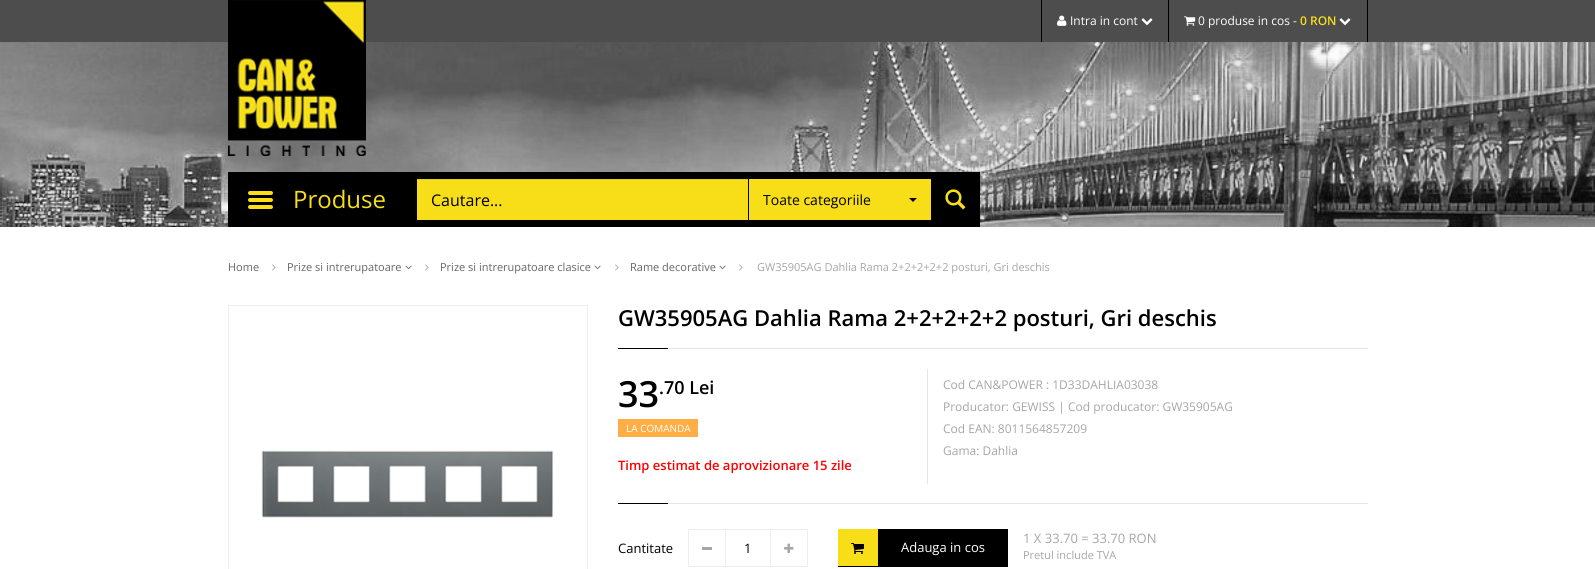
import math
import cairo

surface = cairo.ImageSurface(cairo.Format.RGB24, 1595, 569)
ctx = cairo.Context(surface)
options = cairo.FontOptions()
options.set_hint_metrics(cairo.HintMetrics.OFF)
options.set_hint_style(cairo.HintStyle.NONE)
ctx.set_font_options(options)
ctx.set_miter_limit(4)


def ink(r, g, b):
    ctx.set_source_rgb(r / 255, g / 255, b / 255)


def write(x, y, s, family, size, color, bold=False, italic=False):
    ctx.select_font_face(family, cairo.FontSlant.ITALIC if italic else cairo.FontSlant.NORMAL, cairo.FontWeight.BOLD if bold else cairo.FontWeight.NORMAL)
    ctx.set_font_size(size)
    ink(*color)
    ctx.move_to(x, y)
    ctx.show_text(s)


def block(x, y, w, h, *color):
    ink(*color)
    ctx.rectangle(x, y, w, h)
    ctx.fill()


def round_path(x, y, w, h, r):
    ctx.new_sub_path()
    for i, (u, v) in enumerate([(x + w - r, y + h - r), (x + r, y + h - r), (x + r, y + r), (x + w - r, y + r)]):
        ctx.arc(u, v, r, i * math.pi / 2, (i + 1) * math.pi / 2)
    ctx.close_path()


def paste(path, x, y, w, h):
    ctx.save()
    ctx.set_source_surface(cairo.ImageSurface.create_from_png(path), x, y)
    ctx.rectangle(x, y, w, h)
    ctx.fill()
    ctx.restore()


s1 = dict(family="Open Sans", size=12, color=(255, 255, 255))
s2 = dict(family="Open Sans SemiBold", size=12, color=(247, 222, 25))
s3 = dict(family="Open Sans", size=24, color=(247, 222, 25))
s4 = dict(family="Open Sans", size=16, color=(0, 0, 0))
s5 = dict(family="Open Sans", size=14, color=(0, 0, 0))
s6 = dict(family="Open Sans", size=11, color=(102, 102, 102))
s7 = dict(family="Open Sans", size=11, color=(166, 166, 166))
s8 = dict(family="Open Sans SemiBold", size=22, color=(0, 0, 0))
s9 = dict(family="Open Sans SemiBold", size=36, color=(0, 0, 0))
s10 = dict(family="Open Sans SemiBold", size=18, color=(0, 0, 0))
s11 = dict(family="Open Sans", size=10, color=(255, 255, 255))
s12 = dict(family="Open Sans SemiBold", size=13, color=(255, 0, 0))
s13 = dict(family="Open Sans", size=12, color=(166, 166, 166))
s14 = dict(family="Open Sans", size=13, color=(0, 0, 0))
s15 = dict(family="Open Sans", size=13, color=(255, 255, 255))
s16 = dict(family="Open Sans", size=13, color=(166, 166, 166))

ink(255, 255, 255)
ctx.paint()
block(0, 0, 1595, 42, 77, 77, 77)
paste("pic5.png", 0, 42, 1595, 185)
paste("pic1.png", 228, 0, 138, 156)
block(1041, 0, 1, 42, 0, 0, 0)
block(1168, 0, 1, 42, 0, 0, 0)
paste("pic2.png", 1057, 15, 10, 11)
write(1070, 25, "Intra in cont", **s1)
paste("pic3.png", 1141, 18, 12, 8)
block(1367, 0, 1, 42, 0, 0, 0)
paste("pic4.png", 1184, 16, 12, 10)
write(1198, 25, "0 produse in cos -", **s1)
write(1300, 25, "0 RON", **s2)
paste("pic3.png", 1339, 18, 12, 8)
block(228, 172, 182, 55, 0, 0, 0)
ink(247, 222, 25)
round_path(248, 191, 25, 4, 2)
ctx.fill()
round_path(248, 198, 25, 4, 2)
ctx.fill()
round_path(248, 205, 25, 4, 2)
ctx.fill()
write(293, 208, "Produse", **s3)
block(417, 179, 514, 41, 247, 222, 25)
ctx.rectangle(413.5, 175.5, 563, 48)
ink(0, 0, 0)
ctx.set_line_width(7)
ctx.stroke()
block(417, 179, 331, 1, 228, 205, 23)
write(431, 206, "Cautare...", **s4)
block(748, 179, 1, 41, 0, 0, 0)
write(763, 205, "Toate categoriile", **s5)
ctx.new_path()
ctx.move_to(909, 198)
ctx.line_to(917, 198)
ctx.line_to(913, 202)
ctx.close_path()
ctx.fill()
block(931, 179, 42, 41, 0, 0, 0)
paste("pic6.png", 945, 189, 21, 21)
write(228, 271, "Home", **s6)
paste("pic7.png", 272, 264, 4, 7)
write(287, 271, "Prize si intrerupatoare", **s6)
paste("pic8.png", 405, 265, 7, 5)
paste("pic7.png", 425, 264, 4, 7)
write(440, 271, "Prize si intrerupatoare clasice", **s6)
paste("pic8.png", 594, 265, 7, 5)
paste("pic7.png", 615, 264, 4, 7)
write(630, 271, "Rame decorative", **s6)
paste("pic8.png", 719, 265, 7, 5)
paste("pic7.png", 739, 264, 4, 7)
write(757, 271, "GW35905AG Dahlia Rama 2+2+2+2+2 posturi, Gri deschis", **s7)
ctx.rectangle(228.5, 305.5, 359, 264)
ink(237, 237, 237)
ctx.set_line_width(1)
ctx.stroke()
paste("pic9.png", 261, 450, 293, 68)
paste("pic10.png", 618, 348, 750, 1)
write(618, 326, "GW35905AG Dahlia Rama 2+2+2+2+2 posturi, Gri deschis", **s8)
paste("pic10.png", 618, 503, 750, 1)
block(927, 369, 1, 115, 230, 230, 230)
write(618, 407, "33", **s9)
write(659, 394, ".70 Lei", **s10)
block(618, 419, 80, 18, 255, 174, 69)
write(626, 432, "LA COMANDA", **s11)
write(618, 470, "Timp estimat de aprovizionare 15 zile", **s12)
write(943, 389, "Cod CAN&POWER : 1D33DAHLIA03038", **s13)
write(943, 411, "Producator: GEWISS | Cod producator: GW35905AG", **s13)
write(943, 433, "Cod EAN: 8011564857209", **s13)
write(943, 455, "Gama: Dahlia", **s13)
write(618, 553, "Cantitate", **s14)
ctx.rectangle(688.5, 529.5, 37, 37)
ink(238, 238, 238)
ctx.stroke()
block(702, 547, 10, 3, 166, 166, 166)
block(726, 529, 44, 1, 238, 238, 238)
block(726, 566, 44, 1, 238, 238, 238)
write(744, 553, "1", **s14)
ctx.rectangle(770.5, 529.5, 37, 37)
ink(238, 238, 238)
ctx.stroke()
paste("pic11.png", 784, 543, 10, 10)
block(838, 529, 170, 38, 0, 0, 0)
block(838, 529, 40, 37, 247, 222, 25)
paste("pic12.png", 851, 543, 13, 11)
write(901, 552, "Adauga in cos", **s15)
write(1023, 543, "1 X 33.70 = 33.70 RON", **s16)
write(1023, 559, "Pretul include TVA", **s7)
surface.write_to_png("screenshot.png")
